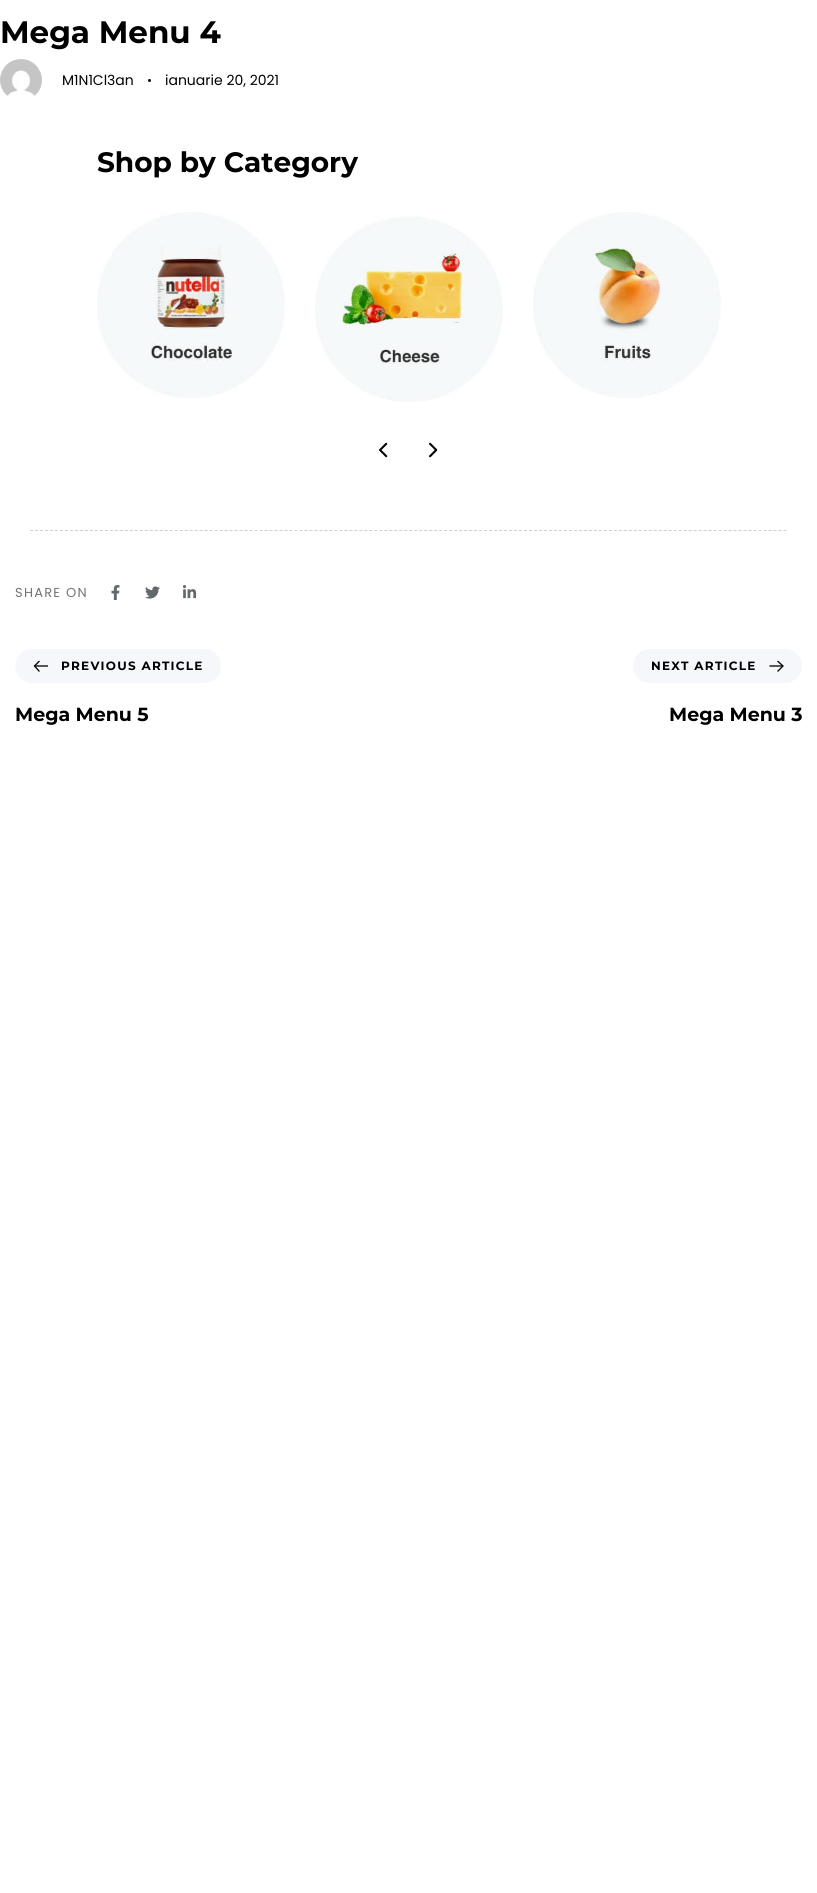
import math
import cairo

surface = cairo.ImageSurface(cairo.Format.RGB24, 817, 1893)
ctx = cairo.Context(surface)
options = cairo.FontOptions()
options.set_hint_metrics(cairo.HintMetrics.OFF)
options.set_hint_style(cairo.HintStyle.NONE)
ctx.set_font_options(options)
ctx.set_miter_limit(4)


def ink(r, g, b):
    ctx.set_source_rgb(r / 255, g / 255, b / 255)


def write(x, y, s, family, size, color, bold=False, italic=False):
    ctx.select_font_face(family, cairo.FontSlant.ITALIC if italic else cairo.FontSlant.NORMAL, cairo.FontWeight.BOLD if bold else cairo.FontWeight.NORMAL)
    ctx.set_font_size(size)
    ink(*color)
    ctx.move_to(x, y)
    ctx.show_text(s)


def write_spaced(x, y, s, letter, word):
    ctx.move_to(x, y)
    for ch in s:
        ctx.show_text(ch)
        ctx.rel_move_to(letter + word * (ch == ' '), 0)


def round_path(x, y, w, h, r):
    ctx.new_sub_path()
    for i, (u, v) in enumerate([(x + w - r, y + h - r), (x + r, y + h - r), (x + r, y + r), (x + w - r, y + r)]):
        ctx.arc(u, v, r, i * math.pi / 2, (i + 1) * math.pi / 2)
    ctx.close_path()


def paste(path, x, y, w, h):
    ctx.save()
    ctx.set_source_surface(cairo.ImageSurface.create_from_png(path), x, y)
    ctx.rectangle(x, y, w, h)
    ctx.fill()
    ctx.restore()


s1 = dict(family="Montserrat Thin", size=31, color=(0, 0, 0))
s2 = dict(family="Poppins", size=14, color=(0, 0, 0))
s3 = dict(family="Montserrat Thin", size=28, color=(0, 0, 0))
s4 = dict(family="Montserrat Thin", size=19, color=(0, 0, 0))

ink(255, 255, 255)
ctx.paint()
write(0, 43, "Mega Menu 4", **s1)
paste("pic1.png", 0, 59, 42, 37)
write(62, 85, "M1N1Cl3an", **s2)
ctx.new_path()
ctx.arc(149.5, 80.5, 1.5, 0, 2 * math.pi)
ctx.fill()
write(165, 85, "ianuarie 20, 2021", **s2)
write(97, 172, "Shop by Category", **s3)
paste("pic2.png", 97, 212, 188, 186)
paste("pic3.png", 315, 216, 188, 186)
paste("pic4.png", 533, 212, 188, 186)
paste("pic5.png", 379, 442, 9, 16)
paste("pic6.png", 429, 442, 9, 16)
ctx.new_path()
ctx.move_to(30, 530.5)
ctx.line_to(787, 530.5)
ink(206, 206, 206)
ctx.set_line_width(1)
ctx.set_dash([3, 1.99])
ctx.stroke()
ctx.select_font_face("Poppins")
ctx.set_font_size(13)
ink(115, 115, 115)
write_spaced(15, 597, "SHARE ON", 1.25, 0)
paste("pic7.png", 111, 585, 9, 15)
paste("pic8.png", 145, 586, 15, 13)
paste("pic9.png", 183, 585, 14, 14)
ink(245, 247, 250)
round_path(15, 649, 206, 34, 17)
ctx.fill()
ctx.new_path()
ctx.move_to(48, 666)
ctx.line_to(34.5, 666)
ink(0, 0, 0)
ctx.set_line_width(1.3)
ctx.set_dash([])
ctx.stroke()
ctx.new_path()
ctx.move_to(39, 671)
ctx.line_to(34.5, 666)
ctx.line_to(39, 661.5)
ctx.set_line_cap(cairo.LineCap.SQUARE)
ctx.stroke()
ctx.select_font_face("Montserrat Thin")
ctx.set_font_size(12)
write_spaced(61, 670, "PREVIOUS ARTICLE", 1.25, 0)
write(15, 721, "Mega Menu 5", **s4)
ink(245, 247, 250)
round_path(633, 649, 169, 34, 17)
ctx.fill()
ctx.set_font_size(12)
ink(0, 0, 0)
write_spaced(651, 670, "NEXT ARTICLE", 1.25, 0)
ctx.new_path()
ctx.move_to(769.5, 666)
ctx.line_to(783, 666)
ctx.set_line_cap(cairo.LineCap.BUTT)
ctx.stroke()
ctx.new_path()
ctx.move_to(778, 661.5)
ctx.line_to(783, 666)
ctx.line_to(778, 671)
ctx.set_line_cap(cairo.LineCap.SQUARE)
ctx.stroke()
write(669, 721, "Mega Menu 3", **s4)
surface.write_to_png("screenshot.png")
